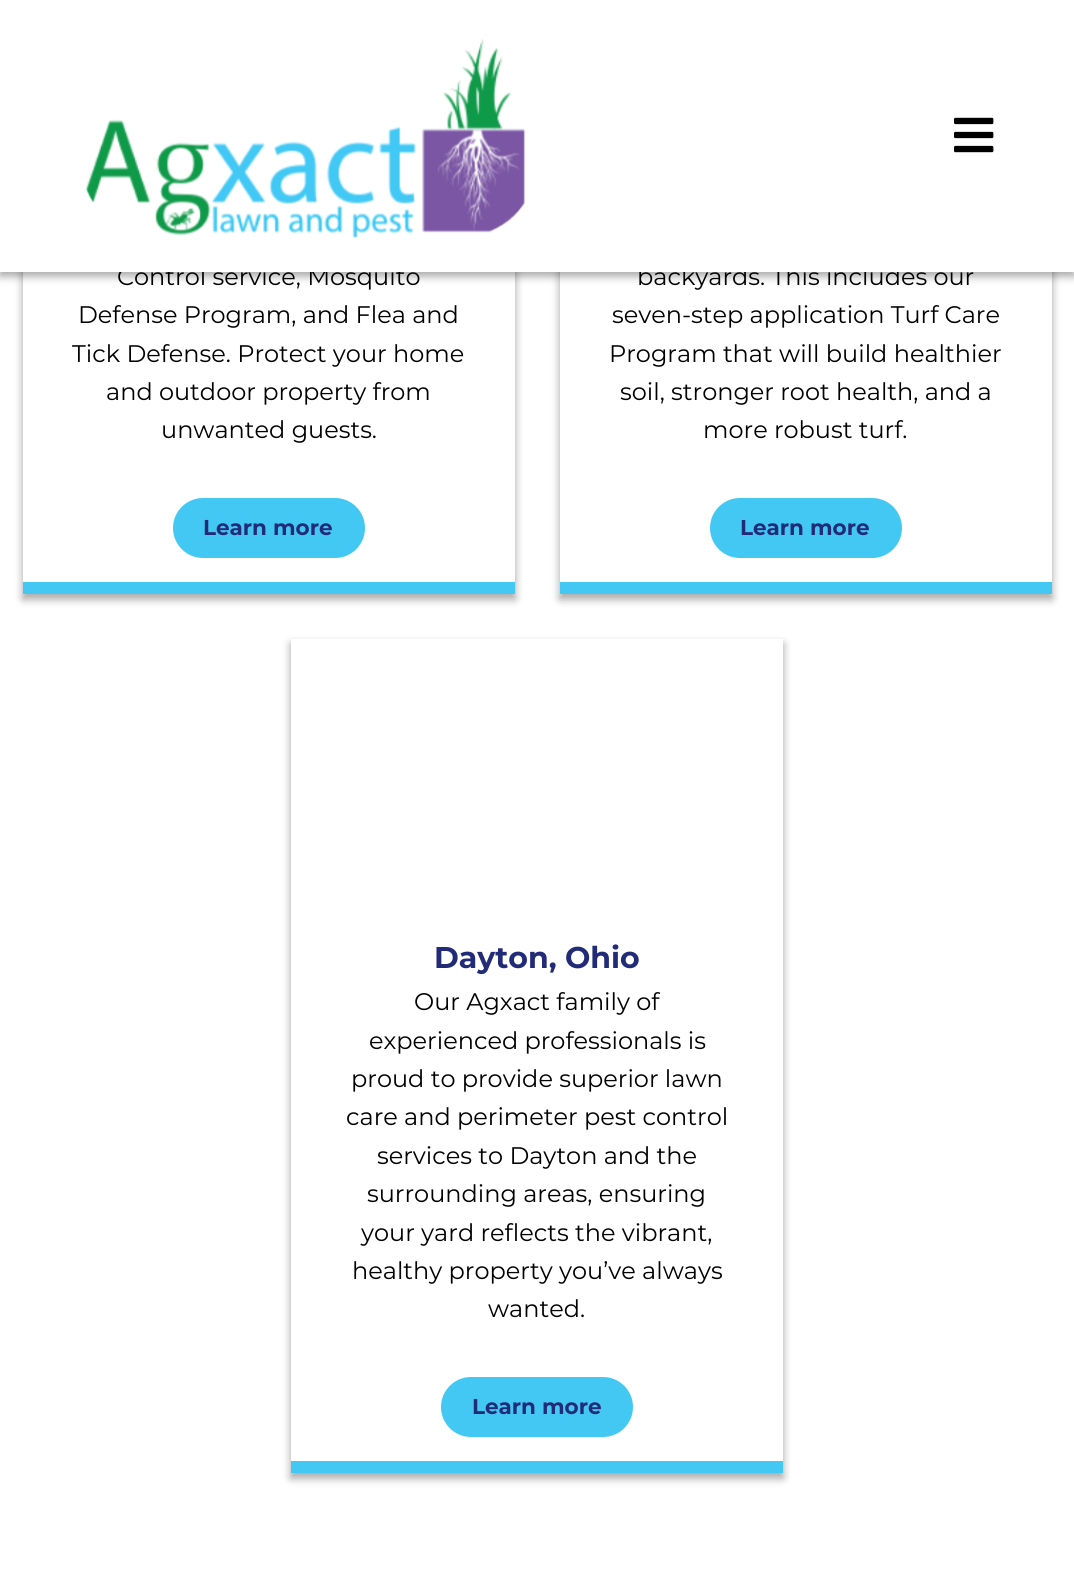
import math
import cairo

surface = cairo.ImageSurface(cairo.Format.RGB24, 1074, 1578)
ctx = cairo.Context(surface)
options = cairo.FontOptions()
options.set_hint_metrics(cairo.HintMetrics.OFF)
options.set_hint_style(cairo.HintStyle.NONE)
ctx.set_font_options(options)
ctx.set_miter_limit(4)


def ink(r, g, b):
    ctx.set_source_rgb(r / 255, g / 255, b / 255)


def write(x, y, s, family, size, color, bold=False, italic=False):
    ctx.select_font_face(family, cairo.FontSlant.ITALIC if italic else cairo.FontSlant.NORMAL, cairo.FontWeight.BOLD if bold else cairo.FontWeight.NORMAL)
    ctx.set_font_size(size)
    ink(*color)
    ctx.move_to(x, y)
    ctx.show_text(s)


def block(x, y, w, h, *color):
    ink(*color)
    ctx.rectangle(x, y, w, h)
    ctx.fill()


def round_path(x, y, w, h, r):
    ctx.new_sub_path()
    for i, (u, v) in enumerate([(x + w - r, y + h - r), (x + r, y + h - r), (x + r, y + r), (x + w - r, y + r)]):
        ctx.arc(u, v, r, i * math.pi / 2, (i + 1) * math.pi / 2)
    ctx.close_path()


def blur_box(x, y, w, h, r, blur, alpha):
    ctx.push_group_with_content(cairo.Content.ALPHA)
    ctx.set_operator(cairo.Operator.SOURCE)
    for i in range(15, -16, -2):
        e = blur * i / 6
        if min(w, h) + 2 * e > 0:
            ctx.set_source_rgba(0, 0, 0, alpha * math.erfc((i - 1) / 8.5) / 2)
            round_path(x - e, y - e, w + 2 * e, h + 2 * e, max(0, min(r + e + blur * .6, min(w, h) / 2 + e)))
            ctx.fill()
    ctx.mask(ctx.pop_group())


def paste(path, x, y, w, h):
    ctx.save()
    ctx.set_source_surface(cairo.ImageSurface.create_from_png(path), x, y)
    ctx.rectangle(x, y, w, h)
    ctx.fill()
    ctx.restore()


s1 = dict(family="Montserrat", size=24, color=(0, 0, 0))
s2 = dict(family="Montserrat", size=21.5, color=(34, 43, 120), bold=True)
s3 = dict(family="Montserrat", size=30, color=(34, 43, 120), bold=True)

ink(255, 255, 255)
ctx.paint()
ink(0, 0, 0)
blur_box(23, -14, 492, 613, 0, 4.5, 0.23)
blur_box(23, -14, 492, 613, 0, 4.5, 0.16)
block(23, 272, 492, 310, 255, 255, 255)
ink(0, 0, 0)
blur_box(560, -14, 492, 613, 0, 4.5, 0.23)
blur_box(560, -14, 492, 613, 0, 4.5, 0.16)
block(560, 272, 492, 310, 255, 255, 255)
ink(0, 0, 0)
blur_box(0, 5, 1074, 271, 0, 4.5, 0.23)
blur_box(0, 5, 1074, 271, 0, 4.5, 0.16)
write(117, 285, "Control service, Mosquito", **s1)
write(637, 285, "backyards. This includes our", **s1)
block(0, 0, 1074, 272, 255, 255, 255)
paste("pic1.png", 86, 39, 440, 199)
paste("pic2.png", 954, 117, 40, 36)
block(23, 582, 492, 12, 67, 200, 244)
write(78, 323, "Defense Program, and Flea and", **s1)
write(72, 362, "Tick Defense. Protect your home", **s1)
write(106, 400, "and outdoor property from", **s1)
write(161, 438, "unwanted guests.", **s1)
ink(67, 200, 244)
round_path(173, 498, 192, 60, 30)
ctx.fill()
write(203, 535, "Learn more", **s2)
block(560, 582, 492, 12, 67, 200, 244)
write(612, 323, "seven-step application Turf Care", **s1)
write(609, 362, "Program that will build healthier", **s1)
write(620, 400, "soil, stronger root health, and a", **s1)
write(703, 438, "more robust turf.", **s1)
ink(67, 200, 244)
round_path(710, 498, 192, 60, 30)
ctx.fill()
write(740, 535, "Learn more", **s2)
ctx.save()
ctx.set_fill_rule(cairo.FillRule.EVEN_ODD)
ctx.new_path()
ctx.move_to(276, 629)
ctx.line_to(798, 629)
ctx.line_to(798, 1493)
ctx.line_to(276, 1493)
ctx.close_path()
ctx.move_to(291, 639)
ctx.line_to(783, 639)
ctx.line_to(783, 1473)
ctx.line_to(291, 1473)
ctx.close_path()
ctx.clip()
ink(0, 0, 0)
blur_box(291, 644, 492, 834, 0, 4.5, 0.23)
blur_box(291, 644, 492, 834, 0, 4.5, 0.16)
ctx.restore()
block(291, 1461, 492, 12, 67, 200, 244)
write(434, 968, "Dayton, Ohio", **s3)
write(414, 1010, "Our Agxact family of", **s1)
write(369, 1049, "experienced professionals is", **s1)
write(351, 1087, "proud to provide superior lawn", **s1)
write(346, 1125, "care and perimeter pest control", **s1)
write(377, 1164, "services to Dayton and the", **s1)
write(367, 1202, "surrounding areas, ensuring", **s1)
write(361, 1241, "your yard reflects the vibrant,", **s1)
write(352, 1279, "healthy property you’ve always", **s1)
write(488, 1317, "wanted.", **s1)
ink(67, 200, 244)
round_path(441, 1377, 192, 60, 30)
ctx.fill()
write(472, 1414, "Learn more", **s2)
surface.write_to_png("screenshot.png")
